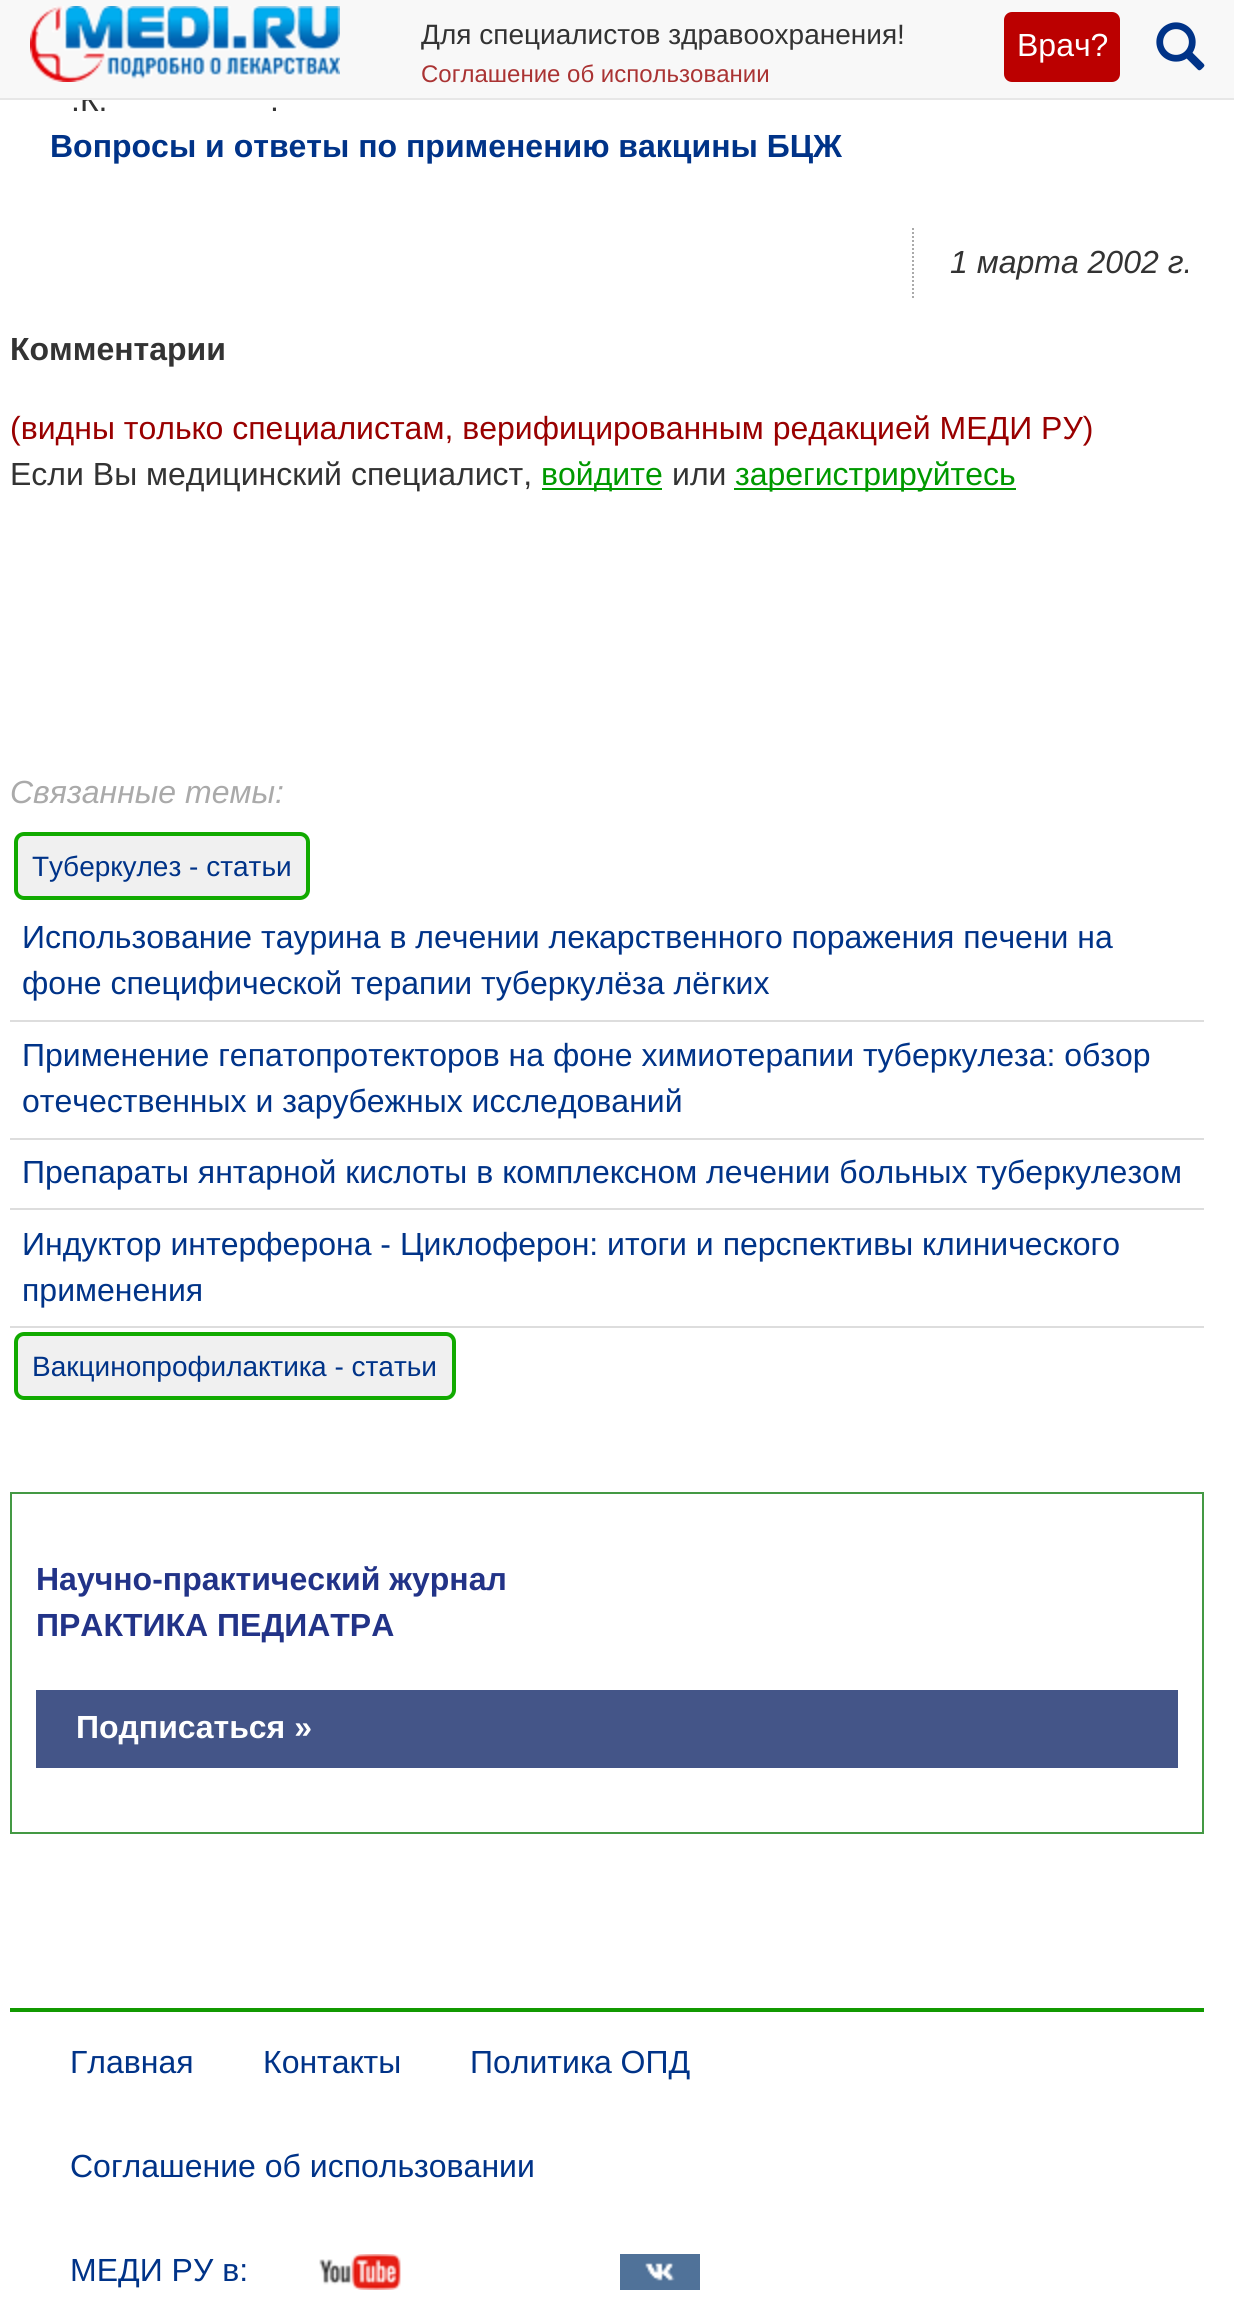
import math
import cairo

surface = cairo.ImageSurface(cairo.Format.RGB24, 1234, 2324)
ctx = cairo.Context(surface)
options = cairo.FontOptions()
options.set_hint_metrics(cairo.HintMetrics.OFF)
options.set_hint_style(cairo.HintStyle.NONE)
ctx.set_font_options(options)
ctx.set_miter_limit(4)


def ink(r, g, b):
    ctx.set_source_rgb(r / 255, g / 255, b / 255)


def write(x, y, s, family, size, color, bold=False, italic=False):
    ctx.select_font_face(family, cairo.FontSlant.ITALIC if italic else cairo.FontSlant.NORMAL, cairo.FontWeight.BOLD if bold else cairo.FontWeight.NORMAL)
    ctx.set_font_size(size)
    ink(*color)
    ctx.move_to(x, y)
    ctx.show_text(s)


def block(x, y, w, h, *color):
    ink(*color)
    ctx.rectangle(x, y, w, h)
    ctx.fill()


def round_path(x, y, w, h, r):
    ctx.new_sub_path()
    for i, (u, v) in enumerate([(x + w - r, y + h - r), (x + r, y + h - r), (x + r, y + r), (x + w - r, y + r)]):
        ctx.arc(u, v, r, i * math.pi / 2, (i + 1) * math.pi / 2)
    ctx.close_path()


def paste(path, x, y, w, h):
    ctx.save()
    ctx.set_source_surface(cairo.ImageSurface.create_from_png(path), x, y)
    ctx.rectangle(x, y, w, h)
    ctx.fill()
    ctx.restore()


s1 = dict(family="Liberation Sans", size=32, color=(51, 51, 51))
s2 = dict(family="Liberation Sans", size=28, color=(51, 51, 51))
s3 = dict(family="Liberation Sans", size=24, color=(170, 51, 51))
s4 = dict(family="Liberation Sans", size=32, color=(255, 255, 255))
s5 = dict(family="Liberation Sans", size=32, color=(0, 51, 136), bold=True)
s6 = dict(family="Liberation Sans", size=32, color=(51, 51, 51), italic=True)
s7 = dict(family="Liberation Sans", size=32, color=(51, 51, 51), bold=True)
s8 = dict(family="Liberation Sans", size=32, color=(153, 0, 0))
s9 = dict(family="Liberation Sans", size=32, color=(0, 153, 0))
s10 = dict(family="Liberation Sans", size=32, color=(170, 170, 170), italic=True)
s11 = dict(family="Liberation Sans", size=28, color=(0, 51, 136))
s12 = dict(family="Liberation Sans", size=32, color=(0, 51, 136))
s13 = dict(family="Liberation Sans", size=32, color=(34, 51, 136), bold=True)
s14 = dict(family="Liberation Sans", size=32, color=(255, 255, 255), bold=True)

ink(255, 255, 255)
ctx.paint()
write(71, 111, ".К.", **s1)
block(0, 0, 1234, 98, 248, 248, 248)
block(0, 98, 1234, 2, 231, 231, 231)
paste("pic1.png", 30, 6, 310, 76)
write(421, 44, "Для специалистов здравоохранения!", **s2)
write(421, 82, "Соглашение об использовании", **s3)
ink(187, 0, 0)
round_path(1004, 12, 116, 70, 8)
ctx.fill()
write(1017, 56, "Врач?", **s4)
paste("pic2.png", 1156, 22, 49, 49)
write(270, 111, ".", **s1)
write(50, 157, "Вопросы и ответы по применению вакцины БЦЖ", **s5)
ctx.new_path()
ctx.move_to(913, 228)
ctx.line_to(913, 298)
ink(170, 170, 170)
ctx.set_dash([2, 2])
ctx.stroke()
write(950, 273, "1 марта 2002 г.", **s6)
write(10, 360, "Комментарии", **s7)
write(10, 439, "(видны только специалистам, верифицированным редакцией МЕДИ РУ)", **s8)
write(10, 485, "Если Вы медицинский специалист,", **s1)
block(542, 488, 120, 2, 0, 153, 0)
write(541, 485, "войдите", **s9)
write(672, 485, "или", **s1)
block(734, 488, 282, 2, 0, 153, 0)
write(735, 485, "зарегистрируйтесь", **s9)
write(10, 803, "Связанные темы:", **s10)
ink(240, 240, 240)
round_path(16, 834, 292, 64, 8)
ctx.fill_preserve()
ink(17, 170, 0)
ctx.set_line_width(4)
ctx.set_dash([])
ctx.stroke()
write(32, 876, "Туберкулез - статьи", **s11)
block(10, 1020, 1194, 2, 221, 221, 221)
write(22, 948, "Использование таурина в лечении лекарственного поражения печени на", **s12)
write(22, 994, "фоне специфической терапии туберкулёза лёгких", **s12)
block(10, 1138, 1194, 2, 221, 221, 221)
write(22, 1066, "Применение гепатопротекторов на фоне химиотерапии туберкулеза: обзор", **s12)
write(22, 1112, "отечественных и зарубежных исследований", **s12)
block(10, 1208, 1194, 2, 221, 221, 221)
write(22, 1183, "Препараты янтарной кислоты в комплексном лечении больных туберкулезом", **s12)
block(10, 1326, 1194, 2, 221, 221, 221)
write(22, 1255, "Индуктор интерферона - Циклоферон: итоги и перспективы клинического", **s12)
write(22, 1301, "применения", **s12)
ink(240, 240, 240)
round_path(16, 1334, 438, 64, 8)
ctx.fill_preserve()
ink(17, 170, 0)
ctx.stroke()
write(32, 1376, "Вакцинопрофилактика - статьи", **s11)
ctx.rectangle(11, 1493, 1192, 340)
ink(68, 153, 68)
ctx.set_line_width(2)
ctx.stroke()
write(36, 1590, "Научно-практический журнал", **s13)
write(36, 1636, "ПРАКТИКА ПЕДИАТРА", **s13)
block(36, 1690, 1142, 78, 68, 85, 136)
write(76, 1738, "Подписаться »", **s14)
block(10, 2008, 1194, 4, 17, 153, 0)
write(70, 2073, "Главная", **s12)
write(263, 2073, "Контакты", **s12)
write(470, 2073, "Политика ОПД", **s12)
write(70, 2177, "Соглашение об использовании", **s12)
write(70, 2281, "МЕДИ РУ в:", **s12)
paste("pic3.png", 319, 2254, 82, 36)
paste("pic4.png", 620, 2254, 80, 36)
surface.write_to_png("screenshot.png")
